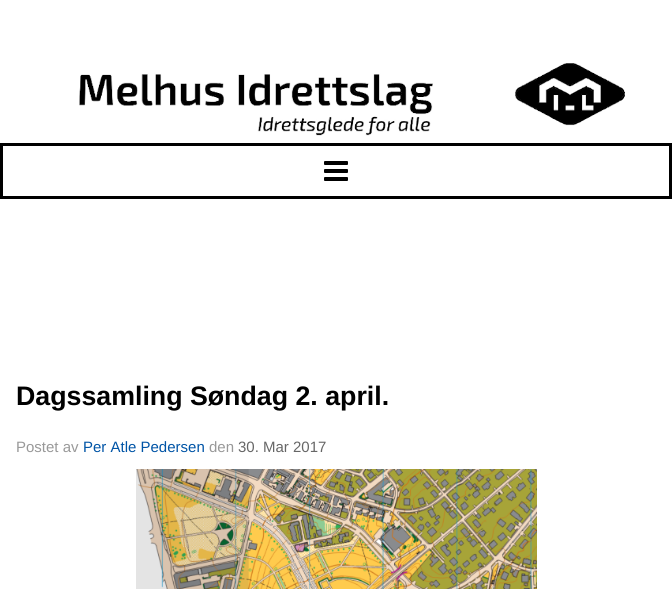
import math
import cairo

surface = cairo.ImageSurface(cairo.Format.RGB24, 672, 589)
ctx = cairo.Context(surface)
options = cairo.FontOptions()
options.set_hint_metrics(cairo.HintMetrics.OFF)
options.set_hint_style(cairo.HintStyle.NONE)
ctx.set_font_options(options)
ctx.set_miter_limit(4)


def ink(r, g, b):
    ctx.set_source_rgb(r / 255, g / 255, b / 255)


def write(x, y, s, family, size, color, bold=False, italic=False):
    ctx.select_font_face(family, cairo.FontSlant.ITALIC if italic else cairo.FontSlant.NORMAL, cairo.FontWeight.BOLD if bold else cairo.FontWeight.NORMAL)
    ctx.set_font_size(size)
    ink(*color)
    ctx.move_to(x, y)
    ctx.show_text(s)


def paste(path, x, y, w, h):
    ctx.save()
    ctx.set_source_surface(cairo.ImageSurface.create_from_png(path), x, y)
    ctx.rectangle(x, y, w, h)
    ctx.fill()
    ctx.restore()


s1 = dict(family="Liberation Sans", size=26.75, color=(0, 0, 0), bold=True)
s2 = dict(family="Liberation Sans", size=15, color=(153, 153, 153))
s3 = dict(family="Liberation Sans", size=15, color=(0, 84, 166))
s4 = dict(family="Liberation Sans", size=15, color=(102, 102, 102))

ink(255, 255, 255)
ctx.paint()
paste("pic1.png", 79, 63, 546, 73)
ctx.rectangle(1.5, 144.5, 669, 53)
ink(0, 0, 0)
ctx.set_line_width(3)
ctx.stroke()
paste("pic2.png", 324, 161, 24, 20)
write(16, 405, "Dagssamling Søndag 2. april.", **s1)
write(16, 452, "Postet av", **s2)
write(83, 452, "Per Atle Pedersen", **s3)
write(209, 452, "den", **s2)
write(238, 452, "30. Mar 2017", **s4)
paste("pic3.png", 136, 469, 401, 120)
surface.write_to_png("screenshot.png")
